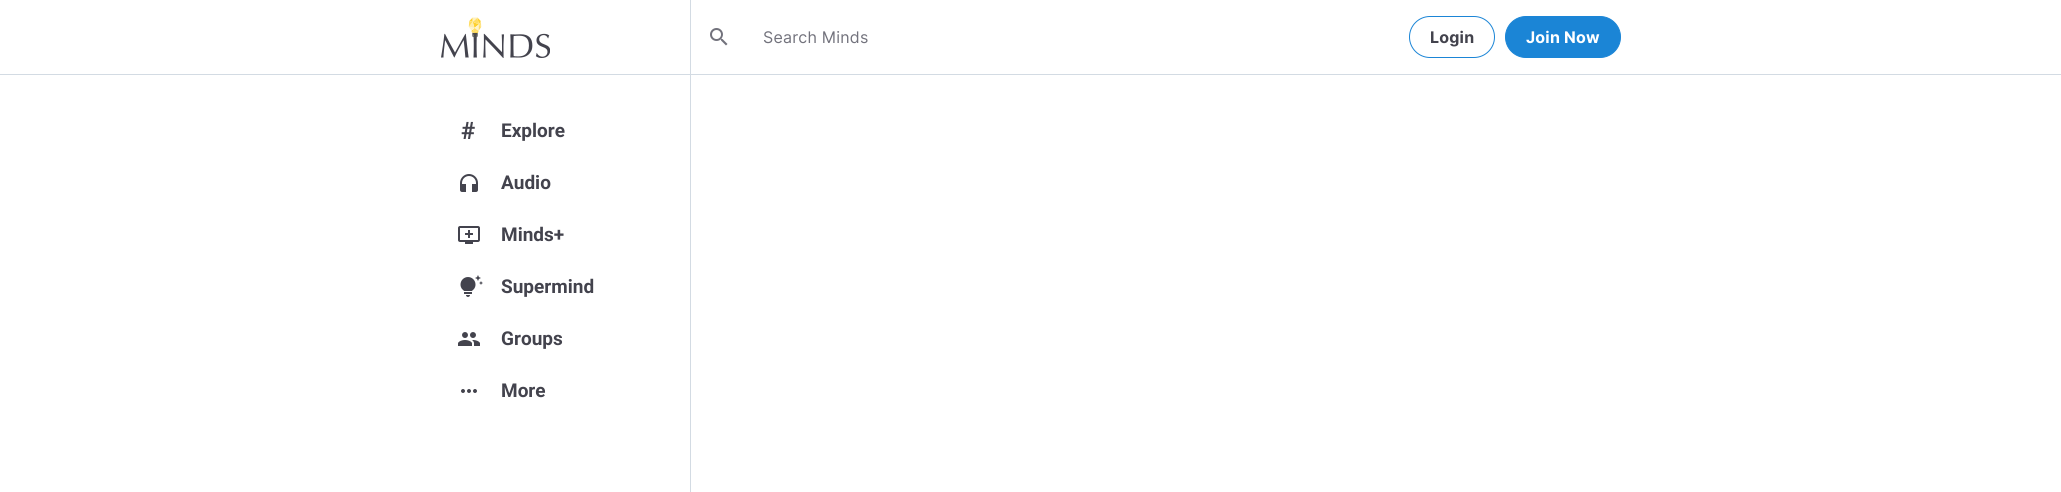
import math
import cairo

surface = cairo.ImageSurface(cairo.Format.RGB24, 2061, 492)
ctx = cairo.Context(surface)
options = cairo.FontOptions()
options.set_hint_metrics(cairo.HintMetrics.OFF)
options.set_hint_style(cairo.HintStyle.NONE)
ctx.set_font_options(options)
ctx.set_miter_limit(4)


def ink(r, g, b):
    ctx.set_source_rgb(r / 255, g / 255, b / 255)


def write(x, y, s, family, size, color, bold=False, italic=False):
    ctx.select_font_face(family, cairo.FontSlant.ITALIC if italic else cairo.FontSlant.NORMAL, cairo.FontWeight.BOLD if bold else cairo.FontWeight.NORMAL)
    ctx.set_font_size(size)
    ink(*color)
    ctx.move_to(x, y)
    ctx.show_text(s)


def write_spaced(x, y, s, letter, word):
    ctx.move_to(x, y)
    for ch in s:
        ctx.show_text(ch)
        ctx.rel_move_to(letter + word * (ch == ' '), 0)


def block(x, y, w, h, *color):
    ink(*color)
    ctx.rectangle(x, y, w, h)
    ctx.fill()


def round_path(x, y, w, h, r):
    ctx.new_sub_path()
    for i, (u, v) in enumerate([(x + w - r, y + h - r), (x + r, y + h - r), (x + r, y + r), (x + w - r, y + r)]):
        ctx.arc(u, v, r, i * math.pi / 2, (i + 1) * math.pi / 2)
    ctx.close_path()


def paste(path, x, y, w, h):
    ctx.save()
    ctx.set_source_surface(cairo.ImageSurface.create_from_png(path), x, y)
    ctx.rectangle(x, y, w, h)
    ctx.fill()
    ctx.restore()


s1 = dict(family="Roboto", size=24, color=(67, 67, 77), bold=True)
s2 = dict(family="Roboto", size=19, color=(67, 67, 77), bold=True)

ink(255, 255, 255)
ctx.paint()
block(0, 74, 2061, 1, 211, 219, 227)
block(690, 0, 1, 74, 211, 219, 227)
paste("pic1.png", 441, 17, 109, 41)
paste("pic2.png", 710, 28, 18, 18)
ctx.select_font_face("Inter")
ctx.set_font_size(16)
ink(114, 114, 124)
write_spaced(763, 43, "Search Minds", 0.2, 0)
round_path(1409.5, 16.5, 85, 41, 20.5)
ink(27, 133, 214)
ctx.set_line_width(1)
ctx.stroke()
ctx.select_font_face("Inter", cairo.FontSlant.NORMAL, cairo.FontWeight.BOLD)
ink(67, 67, 77)
write_spaced(1430, 43, "Login", 0.2, 0)
ink(27, 133, 214)
round_path(1505.5, 16.5, 115, 41, 20.5)
ctx.fill_preserve()
ctx.stroke()
ink(255, 255, 255)
write_spaced(1526, 43, "Join Now", 0.2, 0)
block(690, 75, 1, 417, 211, 219, 227)
write(461, 139, "#", **s1)
write(501, 137, "Explore", **s2)
paste("pic3.png", 460, 174, 18, 18)
write(501, 189, "Audio", **s2)
paste("pic4.png", 458, 226, 22, 18)
write(501, 241, "Minds+", **s2)
paste("pic5.png", 460, 275, 23, 22)
write(501, 293, "Supermind", **s2)
paste("pic6.png", 458, 332, 22, 14)
write(501, 345, "Groups", **s2)
paste("pic7.png", 461, 389, 16, 4)
write(501, 397, "More", **s2)
surface.write_to_png("screenshot.png")
